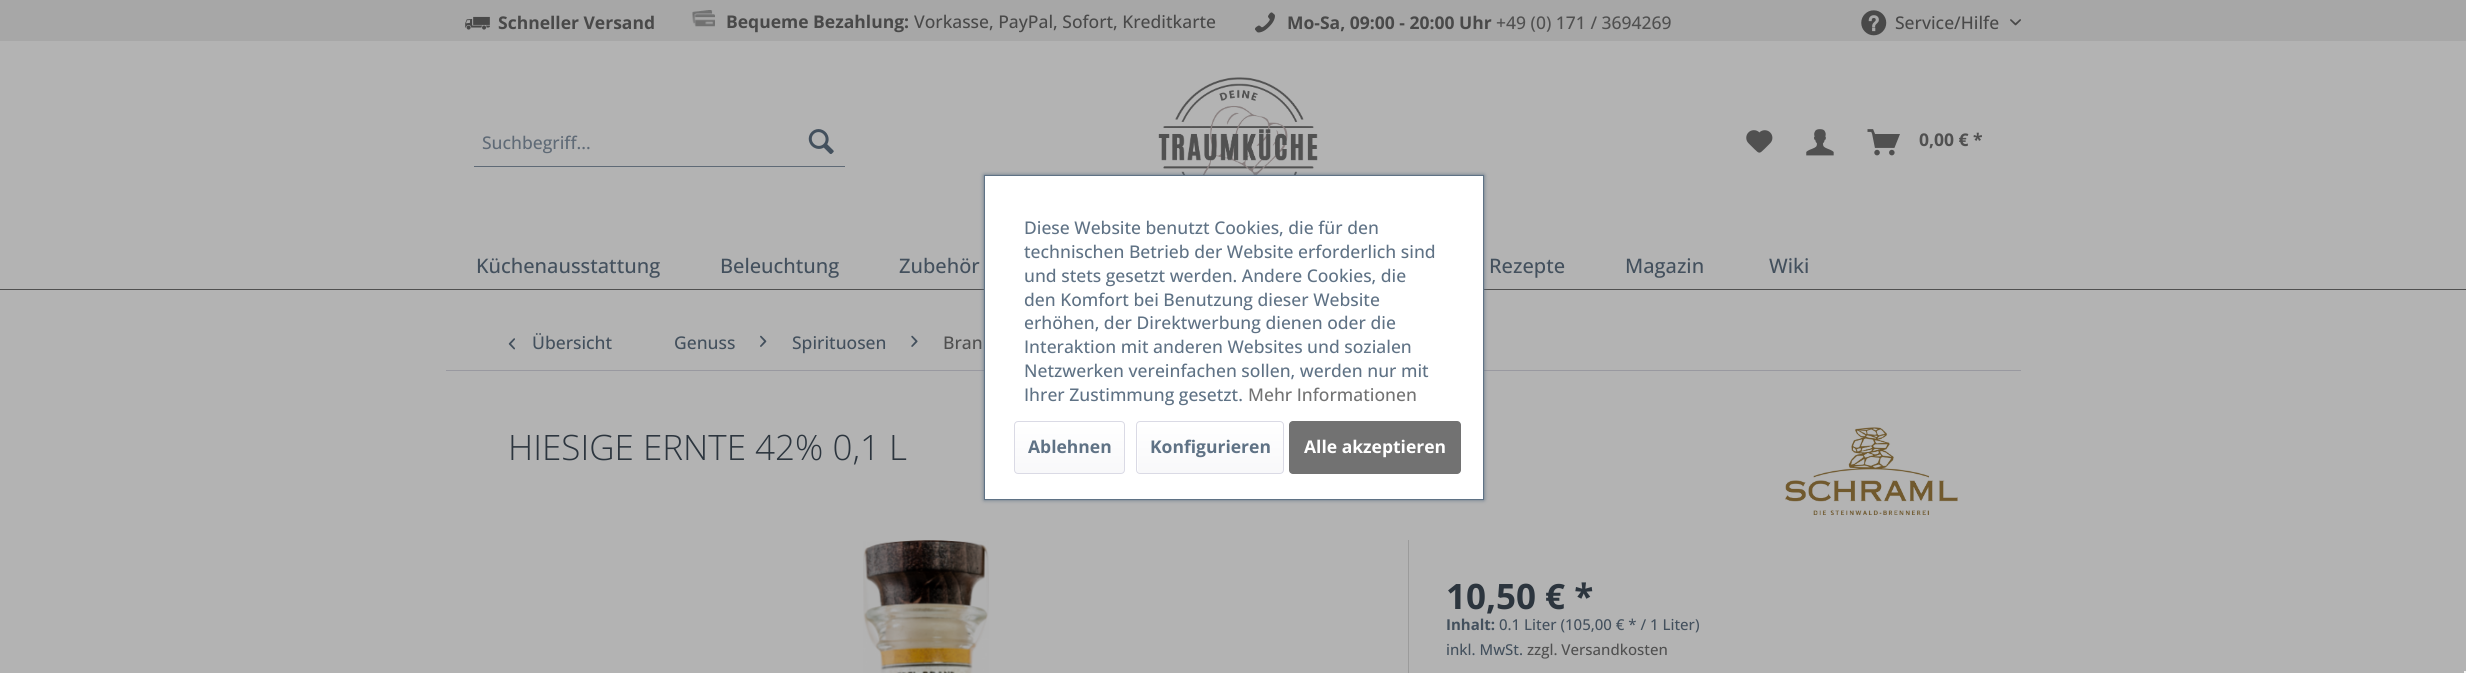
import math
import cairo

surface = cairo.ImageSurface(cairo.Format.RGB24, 2466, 673)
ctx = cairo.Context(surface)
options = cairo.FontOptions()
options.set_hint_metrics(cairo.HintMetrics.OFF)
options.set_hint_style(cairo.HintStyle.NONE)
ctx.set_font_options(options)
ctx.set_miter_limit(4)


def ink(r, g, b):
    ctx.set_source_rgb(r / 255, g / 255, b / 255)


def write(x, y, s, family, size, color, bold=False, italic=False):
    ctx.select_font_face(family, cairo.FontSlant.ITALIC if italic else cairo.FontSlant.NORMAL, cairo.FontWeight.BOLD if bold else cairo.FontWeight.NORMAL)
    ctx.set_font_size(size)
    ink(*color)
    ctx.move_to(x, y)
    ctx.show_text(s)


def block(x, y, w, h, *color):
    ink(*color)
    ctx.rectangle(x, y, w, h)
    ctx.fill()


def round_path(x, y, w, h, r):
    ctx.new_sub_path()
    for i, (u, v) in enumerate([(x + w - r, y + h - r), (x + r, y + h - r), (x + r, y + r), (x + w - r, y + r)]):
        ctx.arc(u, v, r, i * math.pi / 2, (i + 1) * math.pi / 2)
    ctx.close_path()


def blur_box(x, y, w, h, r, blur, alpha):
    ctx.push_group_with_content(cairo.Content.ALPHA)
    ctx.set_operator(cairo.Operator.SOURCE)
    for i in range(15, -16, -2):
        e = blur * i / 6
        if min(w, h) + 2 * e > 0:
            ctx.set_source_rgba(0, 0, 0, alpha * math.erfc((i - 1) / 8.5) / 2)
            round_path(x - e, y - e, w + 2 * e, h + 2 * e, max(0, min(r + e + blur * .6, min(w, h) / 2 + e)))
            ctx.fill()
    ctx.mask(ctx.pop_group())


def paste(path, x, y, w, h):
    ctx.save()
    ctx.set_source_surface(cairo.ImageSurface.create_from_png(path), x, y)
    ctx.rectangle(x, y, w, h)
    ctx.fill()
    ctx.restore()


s1 = dict(family="Open Sans", size=17.5, color=(73, 73, 73), bold=True)
s2 = dict(family="Open Sans Medium", size=17.5, color=(73, 73, 73))
s3 = dict(family="Open Sans Medium", size=17.5, color=(80, 80, 80))
s4 = dict(family="Open Sans Medium", size=17.5, color=(95, 106, 118))
s5 = dict(family="Open Sans", size=17.5, color=(80, 80, 80), bold=True)
s6 = dict(family="Open Sans Medium", size=20, color=(67, 80, 93))
s7 = dict(family="Open Sans Medium", size=17.5, color=(67, 80, 93))
s8 = dict(family="Open Sans Light", size=35, color=(44, 53, 62))
s9 = dict(family="Open Sans", size=35, color=(44, 53, 62), bold=True)
s10 = dict(family="Open Sans", size=15, color=(67, 80, 93), bold=True)
s11 = dict(family="Open Sans Medium", size=15, color=(67, 80, 93))
s12 = dict(family="Open Sans Medium", size=15, color=(80, 80, 80))
s13 = dict(family="Open Sans Medium", size=17.5, color=(95, 114, 133))
s14 = dict(family="Open Sans Medium", size=17.5, color=(114, 114, 114))
s15 = dict(family="Open Sans", size=17.5, color=(95, 114, 133), bold=True)
s16 = dict(family="Open Sans", size=17.5, color=(255, 255, 255), bold=True)

ink(179, 179, 179)
ctx.paint()
block(0, 0, 2466, 41, 167, 167, 167)
paste("pic1.png", 465, 16, 25, 14)
write(498, 29, "Schneller Versand", **s1)
paste("pic2.png", 692, 10, 23, 17)
write(726, 28, "Bequeme Bezahlung:", **s1)
write(914, 28, "Vorkasse, PayPal, Sofort, Kreditkarte", **s2)
paste("pic3.png", 1255, 12, 20, 21)
write(1287, 29, "Mo-Sa, 09:00 - 20:00 Uhr", **s1)
write(1496, 29, "+49 (0) 171 / 3694269", **s3)
paste("pic4.png", 1861, 10, 26, 26)
write(1895, 29, "Service/Hilfe", **s2)
paste("pic5.png", 2010, 19, 11, 7)
block(474, 166, 371, 1, 95, 106, 118)
write(482, 149, "Suchbegriff...", **s4)
paste("pic6.png", 808, 129, 26, 25)
paste("pic7.png", 1158, 77, 160, 98)
paste("pic8.png", 1746, 130, 27, 23)
paste("pic9.png", 1806, 129, 28, 27)
paste("pic10.png", 1867, 129, 33, 27)
write(1919, 146, "0,00 € *", **s5)
block(0, 289, 2466, 1, 80, 80, 80)
write(476, 273, "Küchenausstattung", **s6)
write(720, 273, "Beleuchtung", **s6)
write(899, 273, "Zubehör", **s6)
write(1489, 273, "Rezepte", **s6)
write(1625, 273, "Magazin", **s6)
write(1769, 273, "Wiki", **s6)
block(446, 370, 1575, 1, 153, 153, 160)
paste("pic11.png", 508, 338, 7, 12)
write(532, 349, "Übersicht", **s7)
write(674, 349, "Genuss", **s7)
paste("pic12.png", 760, 335, 7, 12)
write(792, 349, "Spirituosen", **s7)
paste("pic13.png", 911, 335, 7, 12)
write(943, 349, "Bran", **s3)
write(508, 460, "HIESIGE ERNTE 42% 0,1 L", **s8)
paste("pic14.png", 1785, 427, 173, 88)
paste("pic15.png", 863, 540, 126, 133)
block(1408, 540, 1, 133, 155, 155, 155)
write(1446, 609, "10,50 € *", **s9)
write(1446, 630, "Inhalt:", **s10)
write(1499, 630, "0.1 Liter (105,00 € * / 1 Liter)", **s11)
write(1446, 655, "inkl. MwSt.", **s11)
write(1527, 655, "zzgl. Versandkosten", **s12)
ink(95, 114, 133)
blur_box(984, 175, 500, 325, 0, 2, 1)
ink(255, 255, 255)
ctx.rectangle(984.5, 175.5, 499, 324)
ctx.fill_preserve()
ink(95, 114, 133)
ctx.set_line_width(1)
ctx.stroke()
write(1024, 234, "Diese Website benutzt Cookies, die für den", **s13)
write(1024, 258, "technischen Betrieb der Website erforderlich sind", **s13)
write(1024, 282, "und stets gesetzt werden. Andere Cookies, die", **s13)
write(1024, 306, "den Komfort bei Benutzung dieser Website", **s13)
write(1024, 329, "erhöhen, der Direktwerbung dienen oder die", **s13)
write(1024, 353, "Interaktion mit anderen Websites und sozialen", **s13)
write(1024, 377, "Netzwerken vereinfachen sollen, werden nur mit", **s13)
write(1024, 401, "Ihrer Zustimmung gesetzt.", **s13)
write(1248, 401, "Mehr Informationen", **s14)
gradient = cairo.LinearGradient(1069, 423, 1069, 473)
gradient.add_color_stop_rgba(0, 1, 1, 1, 1)
gradient.add_color_stop_rgba(1, 0.973, 0.973, 0.98, 1)
ctx.set_source(gradient)
round_path(1015, 423, 109, 50, 2.5)
ctx.fill()
round_path(1014.5, 421.5, 110, 52, 3.5)
ink(218, 218, 229)
ctx.stroke()
write(1028, 453, "Ablehnen", **s15)
gradient = cairo.LinearGradient(1210, 423, 1210, 473)
gradient.add_color_stop_rgba(0, 1, 1, 1, 1)
gradient.add_color_stop_rgba(1, 0.973, 0.973, 0.98, 1)
ctx.set_source(gradient)
round_path(1138, 423, 145, 50, 2.5)
ctx.fill()
round_path(1136.5, 421.5, 147, 52, 3.5)
ink(218, 218, 229)
ctx.stroke()
write(1150, 453, "Konfigurieren", **s15)
ink(114, 114, 114)
round_path(1289, 421, 172, 53, 4)
ctx.fill()
write(1304, 453, "Alle akzeptieren", **s16)
block(2464, 671, 2, 2, 245, 245, 245)
surface.write_to_png("screenshot.png")
